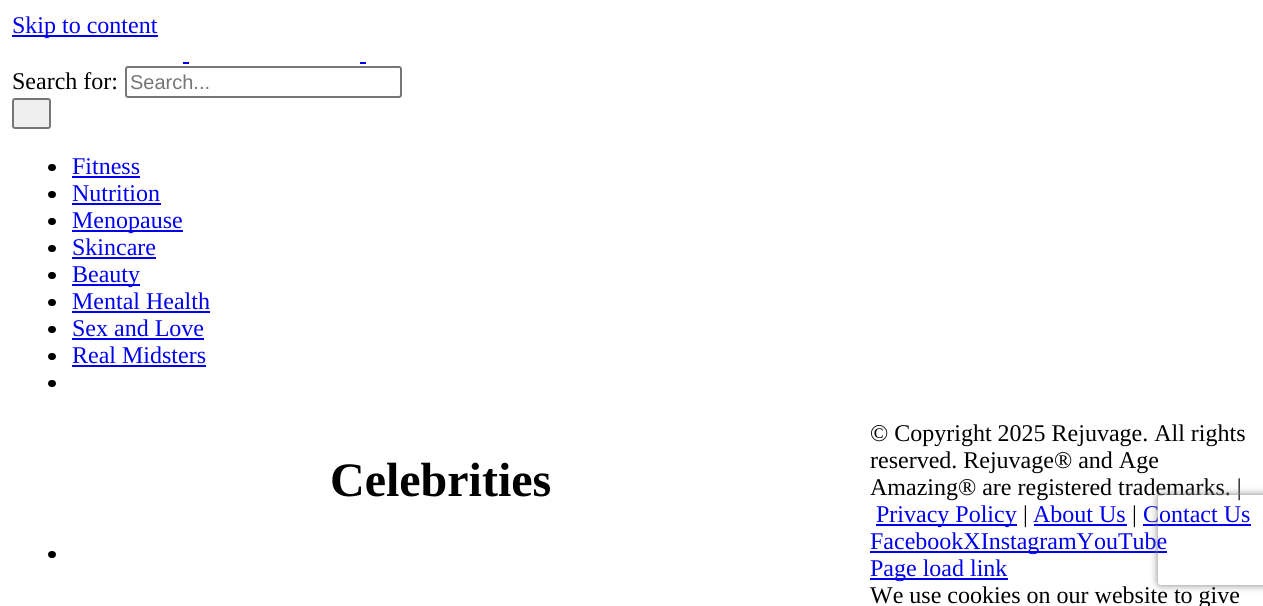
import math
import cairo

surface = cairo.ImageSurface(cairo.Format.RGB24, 1263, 606)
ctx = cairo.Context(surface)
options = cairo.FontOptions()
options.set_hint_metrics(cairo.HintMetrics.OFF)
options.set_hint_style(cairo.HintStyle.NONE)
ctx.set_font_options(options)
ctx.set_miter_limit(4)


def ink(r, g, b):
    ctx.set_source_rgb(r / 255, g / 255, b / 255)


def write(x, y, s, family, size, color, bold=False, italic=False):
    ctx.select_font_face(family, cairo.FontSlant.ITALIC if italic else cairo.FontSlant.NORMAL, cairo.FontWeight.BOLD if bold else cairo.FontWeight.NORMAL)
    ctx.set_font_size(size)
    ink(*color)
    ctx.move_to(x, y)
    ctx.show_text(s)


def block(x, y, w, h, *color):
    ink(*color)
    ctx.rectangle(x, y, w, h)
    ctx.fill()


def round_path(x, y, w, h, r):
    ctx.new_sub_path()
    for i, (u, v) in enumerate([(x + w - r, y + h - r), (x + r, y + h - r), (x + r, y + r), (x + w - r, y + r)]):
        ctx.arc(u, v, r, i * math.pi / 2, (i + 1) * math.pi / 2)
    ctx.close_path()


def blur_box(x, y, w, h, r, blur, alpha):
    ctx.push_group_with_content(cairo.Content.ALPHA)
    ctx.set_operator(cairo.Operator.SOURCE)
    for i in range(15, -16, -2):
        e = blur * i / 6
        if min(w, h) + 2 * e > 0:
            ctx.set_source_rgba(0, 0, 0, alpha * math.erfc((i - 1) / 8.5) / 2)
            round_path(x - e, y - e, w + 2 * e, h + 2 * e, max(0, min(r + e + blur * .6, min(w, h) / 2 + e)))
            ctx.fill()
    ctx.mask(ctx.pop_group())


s1 = dict(family="Liberation Serif", size=24, color=(0, 0, 238))
s2 = dict(family="Liberation Serif", size=24, color=(0, 0, 0))
s3 = dict(family="Liberation Sans", size=20, color=(117, 117, 117))
s4 = dict(family="Liberation Serif", size=48, color=(0, 0, 0), bold=True)

ink(255, 255, 255)
ctx.paint()
block(12, 35, 146, 2, 0, 0, 238)
write(12, 33, "Skip to content", **s1)
block(183, 62, 6, 2, 0, 0, 238)
block(360, 62, 6, 2, 0, 0, 238)
write(12, 89, "Search for:", **s2)
round_path(126, 67, 275, 30, 2)
ink(118, 118, 118)
ctx.stroke()
write(130, 89, "Search...", **s3)
ink(239, 239, 239)
round_path(13, 99, 37, 29, 2)
ctx.fill_preserve()
ink(118, 118, 118)
ctx.stroke()
ink(0, 0, 0)
round_path(48, 164, 8, 7, 3.5)
ctx.fill()
write(72, 174, "Fitness", **s1)
block(72, 176, 68, 2, 0, 0, 238)
ink(0, 0, 0)
round_path(48, 191, 8, 7, 3.5)
ctx.fill()
write(72, 201, "Nutrition", **s1)
block(72, 203, 89, 2, 0, 0, 238)
ink(0, 0, 0)
round_path(48, 218, 8, 7, 3.5)
ctx.fill()
block(72, 230, 111, 2, 0, 0, 238)
write(72, 228, "Menopause", **s1)
ink(0, 0, 0)
round_path(48, 245, 8, 7, 3.5)
ctx.fill()
write(72, 255, "Skincare", **s1)
block(72, 257, 84, 2, 0, 0, 238)
ink(0, 0, 0)
round_path(48, 272, 8, 7, 3.5)
ctx.fill()
block(72, 284, 68, 2, 0, 0, 238)
write(72, 282, "Beauty", **s1)
ink(0, 0, 0)
round_path(48, 299, 8, 7, 3.5)
ctx.fill()
write(72, 309, "Mental Health", **s1)
block(72, 311, 138, 2, 0, 0, 238)
ink(0, 0, 0)
round_path(48, 326, 8, 7, 3.5)
ctx.fill()
write(72, 336, "Sex and Love", **s1)
block(72, 338, 132, 2, 0, 0, 238)
ink(0, 0, 0)
round_path(48, 353, 8, 7, 3.5)
ctx.fill()
write(72, 363, "Real Midsters", **s1)
block(72, 365, 134, 2, 0, 0, 238)
ink(0, 0, 0)
round_path(48, 380, 8, 7, 3.5)
ctx.fill()
write(330, 496, "Celebrities", **s4)
round_path(48, 551, 8, 7, 3.5)
ctx.fill()
write(870, 441, "© Copyright 2025 Rejuvage. All rights", **s2)
write(870, 468, "reserved. Rejuvage® and Age", **s2)
write(870, 495, "Amazing® are registered trademarks. |", **s2)
block(876, 524, 141, 2, 0, 0, 238)
write(876, 522, "Privacy Policy", **s1)
write(1023, 522, "|", **s2)
write(1033, 522, "About Us", **s1)
block(1034, 524, 93, 2, 0, 0, 238)
write(1132, 522, "|", **s2)
write(1143, 522, "Contact Us", **s1)
block(1143, 524, 108, 2, 0, 0, 238)
block(870, 551, 297, 2, 0, 0, 238)
write(870, 549, "FacebookXInstagramYouTube", **s1)
block(870, 578, 138, 2, 0, 0, 238)
write(870, 576, "Page load link", **s1)
ctx.save()
ctx.set_fill_rule(cairo.FillRule.EVEN_ODD)
ctx.new_path()
ctx.move_to(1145, 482)
ctx.line_to(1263, 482)
ctx.line_to(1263, 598)
ctx.line_to(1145, 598)
ctx.close_path()
ctx.move_to(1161, 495)
ctx.line_to(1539, 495)
ctx.curve_to(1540.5, 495, 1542, 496.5, 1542, 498)
ctx.line_to(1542, 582)
ctx.curve_to(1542, 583.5, 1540.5, 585, 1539, 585)
ctx.line_to(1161, 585)
ctx.curve_to(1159.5, 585, 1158, 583.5, 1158, 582)
ctx.line_to(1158, 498)
ctx.curve_to(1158, 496.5, 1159.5, 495, 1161, 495)
ctx.close_path()
ctx.clip()
ink(128, 128, 128)
blur_box(1158, 495, 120, 90, 3, 4, 1)
ctx.restore()
write(870, 603, "We use cookies on our website to give", **s2)
surface.write_to_png("screenshot.png")
